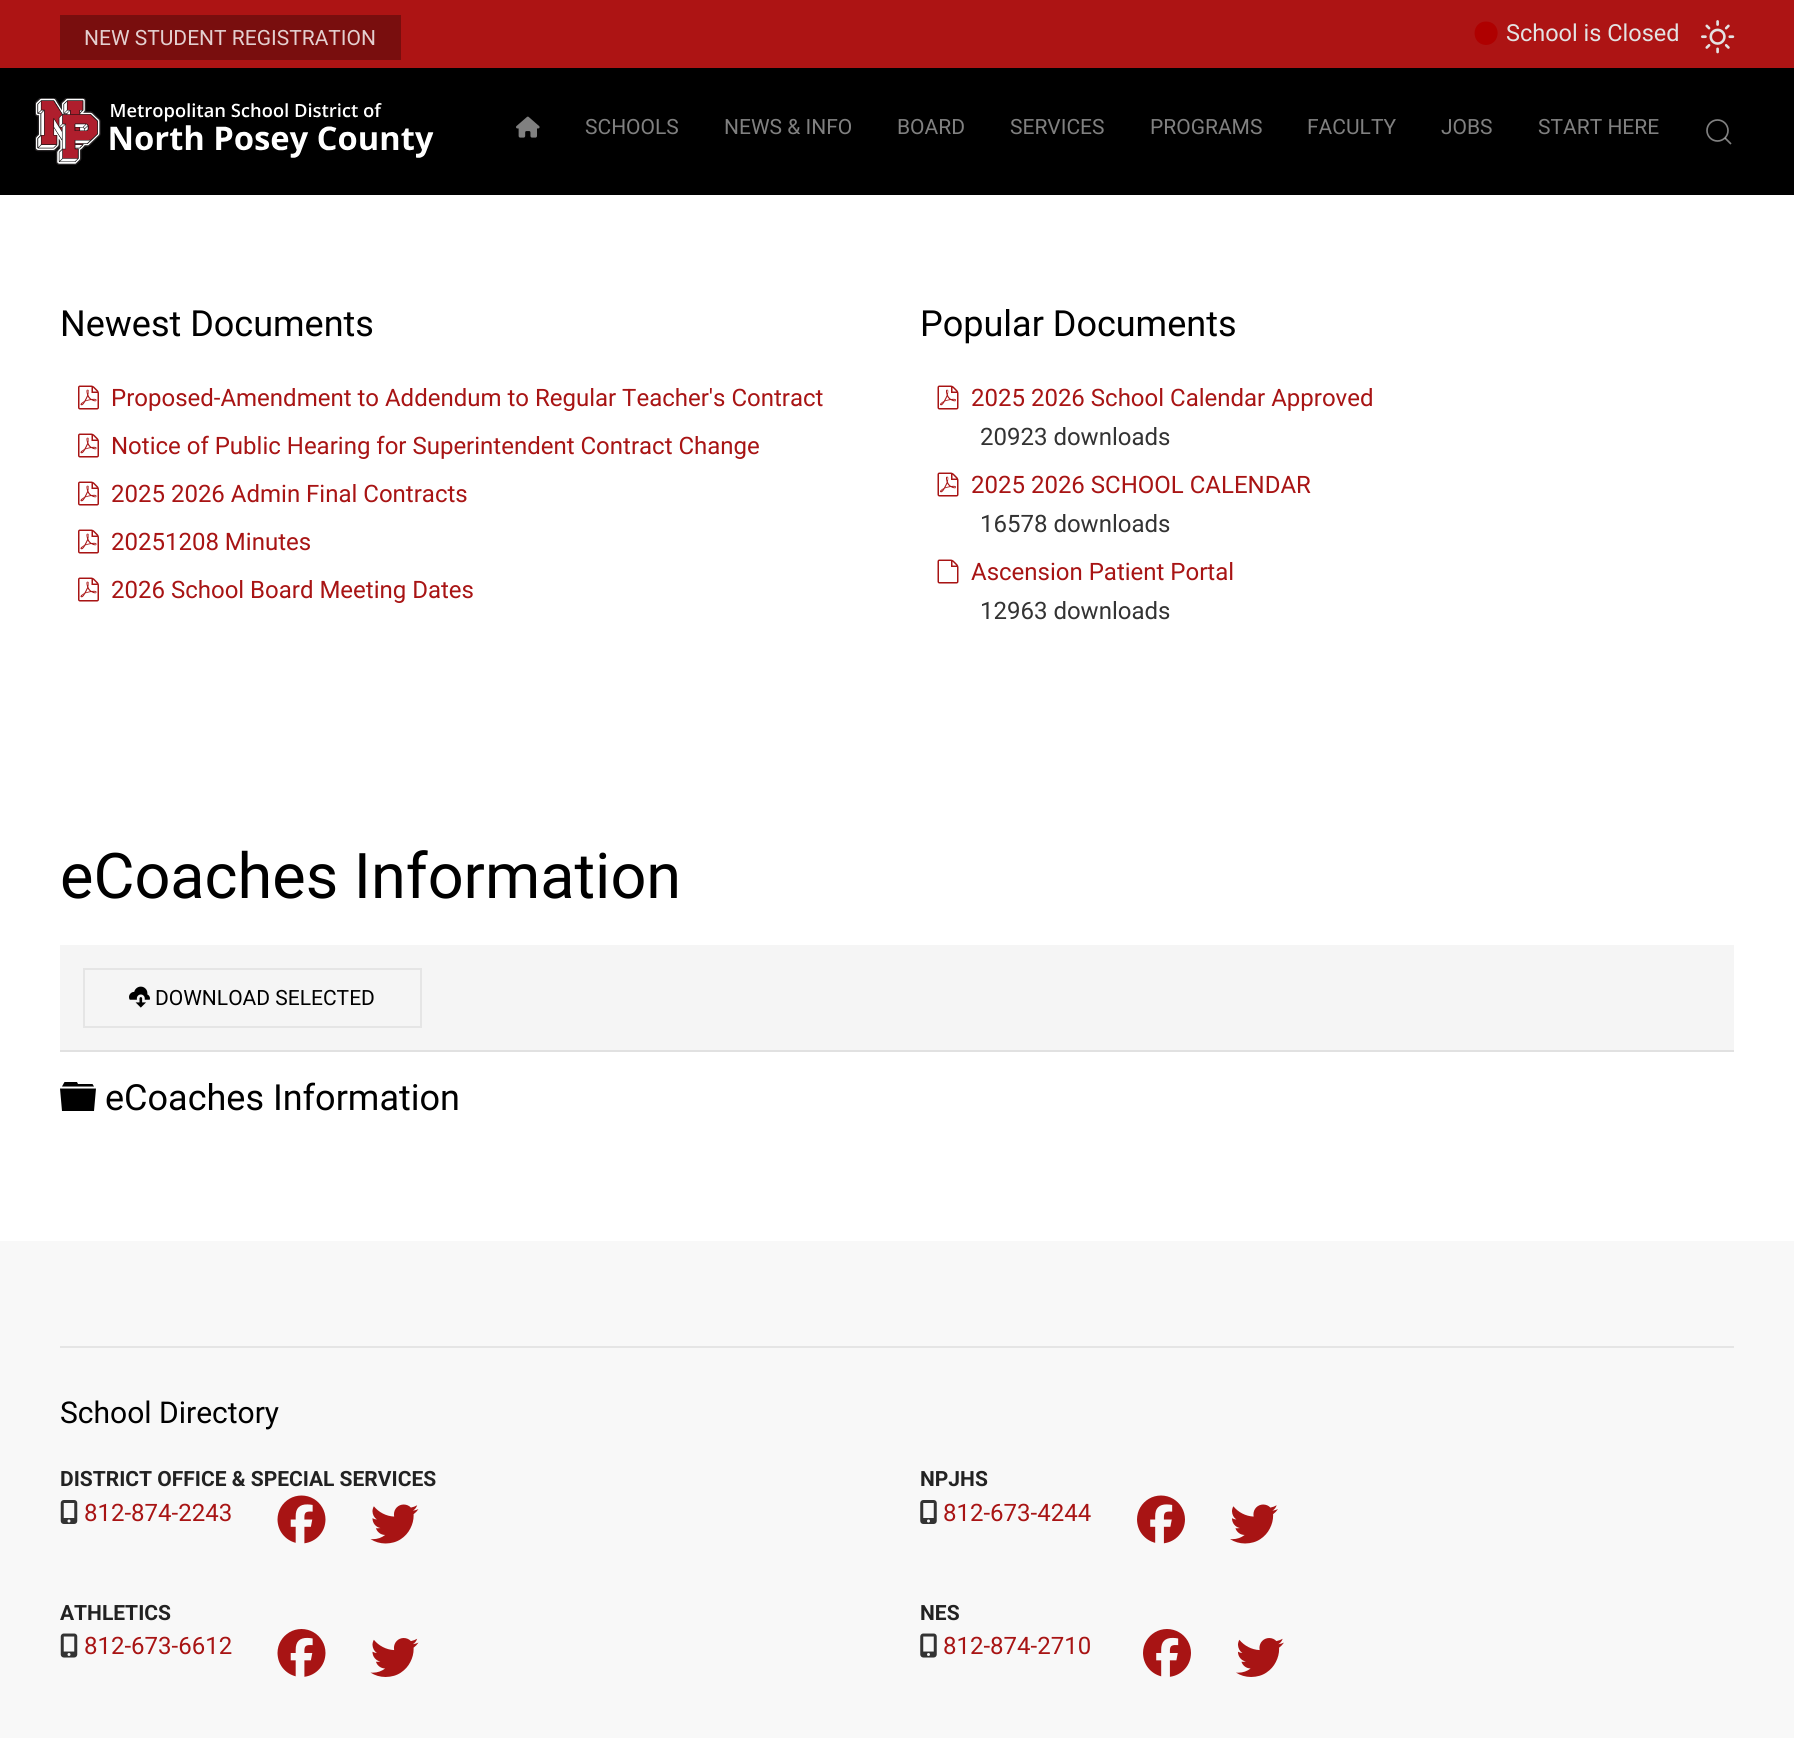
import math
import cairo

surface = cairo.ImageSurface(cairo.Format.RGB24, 1794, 1738)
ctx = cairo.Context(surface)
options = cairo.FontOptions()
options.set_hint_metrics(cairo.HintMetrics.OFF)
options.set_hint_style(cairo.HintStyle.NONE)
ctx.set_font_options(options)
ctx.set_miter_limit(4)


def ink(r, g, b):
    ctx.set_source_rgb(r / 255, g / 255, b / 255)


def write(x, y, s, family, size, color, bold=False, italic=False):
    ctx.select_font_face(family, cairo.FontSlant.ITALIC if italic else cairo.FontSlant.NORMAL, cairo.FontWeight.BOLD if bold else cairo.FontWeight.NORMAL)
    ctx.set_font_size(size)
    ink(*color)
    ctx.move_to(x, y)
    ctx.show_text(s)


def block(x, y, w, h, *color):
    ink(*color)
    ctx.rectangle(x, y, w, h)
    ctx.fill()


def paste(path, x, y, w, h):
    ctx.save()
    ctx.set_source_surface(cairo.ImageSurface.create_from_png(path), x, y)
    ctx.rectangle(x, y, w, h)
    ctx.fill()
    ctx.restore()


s1 = dict(family="Roboto", size=21, color=(228, 207, 207))
s2 = dict(family="Roboto", size=23.5, color=(227, 227, 227))
s3 = dict(family="Roboto", size=21, color=(128, 128, 128))
s4 = dict(family="Roboto", size=36, color=(0, 0, 0))
s5 = dict(family="Roboto", size=24, color=(168, 20, 20))
s6 = dict(family="Roboto", size=24, color=(51, 51, 51))
s7 = dict(family="Roboto", size=63, color=(0, 0, 0))
s8 = dict(family="Roboto", size=21, color=(0, 0, 0))
s9 = dict(family="Roboto", size=30, color=(0, 0, 0))
s10 = dict(family="Roboto", size=21, color=(34, 34, 34), bold=True)

ink(255, 255, 255)
ctx.paint()
block(0, 0, 1794, 68, 173, 20, 20)
block(60, 15, 341, 45, 121, 14, 14)
write(84, 45, "NEW STUDENT REGISTRATION", **s1)
ink(175, 0, 0)
ctx.new_path()
ctx.move_to(1486, 45)
ctx.curve_to(1501.5, 44.5, 1501.5, 21.5, 1486, 21.5)
ctx.curve_to(1471, 21.5, 1470.5, 44.5, 1486, 45)
ctx.close_path()
ctx.fill()
write(1506, 41, "School is Closed", **s2)
paste("pic1.png", 1701, 20, 34, 34)
block(0, 68, 1794, 127, 0, 0, 0)
paste("pic2.png", 35, 98, 399, 67)
paste("pic3.png", 516, 116, 24, 22)
write(585, 134, "SCHOOLS", **s3)
write(724, 134, "NEWS & INFO", **s3)
write(897, 134, "BOARD", **s3)
write(1010, 134, "SERVICES", **s3)
write(1150, 134, "PROGRAMS", **s3)
write(1307, 134, "FACULTY", **s3)
write(1441, 134, "JOBS", **s3)
write(1538, 134, "START HERE", **s3)
ctx.new_path()
ctx.arc(1717.5, 130.5, 10.5, 0, 2 * math.pi)
ctx.set_line_width(1.7)
ctx.stroke()
ctx.new_path()
ctx.move_to(1725, 138)
ctx.line_to(1731, 144)
ctx.close_path()
ctx.set_source_rgba(1, 1, 1, 0.5)
ctx.stroke()
write(60, 336, "Newest Documents", **s4)
paste("pic4.png", 78, 385, 21, 25)
write(111, 406, "Proposed-Amendment to Addendum to Regular Teacher's Contract", **s5)
paste("pic4.png", 78, 433, 21, 25)
write(111, 454, "Notice of Public Hearing for Superintendent Contract Change", **s5)
paste("pic4.png", 78, 481, 21, 25)
write(111, 502, "2025 2026 Admin Final Contracts", **s5)
paste("pic4.png", 78, 529, 21, 25)
write(111, 550, "20251208 Minutes", **s5)
paste("pic4.png", 78, 577, 21, 25)
write(111, 598, "2026 School Board Meeting Dates", **s5)
write(920, 336, "Popular Documents", **s4)
paste("pic5.png", 937, 385, 22, 25)
write(971, 406, "2025 2026 School Calendar Approved", **s5)
write(980, 445, "20923 downloads", **s6)
paste("pic5.png", 937, 472, 22, 25)
write(971, 493, "2025 2026 SCHOOL CALENDAR", **s5)
write(980, 532, "16578 downloads", **s6)
paste("pic6.png", 937, 559, 22, 25)
write(971, 580, "Ascension Patient Portal", **s5)
write(980, 619, "12963 downloads", **s6)
write(60, 898, "eCoaches Information", **s7)
block(60, 945, 1674, 105, 245, 245, 245)
block(60, 1050, 1674, 2, 225, 225, 225)
ctx.rectangle(84, 969, 337, 58)
ink(229, 229, 229)
ctx.set_line_width(2)
ctx.stroke()
paste("pic7.png", 129, 986, 21, 22)
write(155, 1005, "DOWNLOAD SELECTED", **s8)
ctx.new_path()
ctx.move_to(60, 1088.5)
ctx.line_to(96, 1088.5)
ctx.line_to(94, 1111)
ctx.line_to(62, 1111)
ctx.close_path()
ctx.move_to(92.5, 1084)
ctx.line_to(94, 1086.5)
ctx.line_to(62, 1086.5)
ctx.line_to(64.5, 1082)
ctx.line_to(77, 1082)
ctx.line_to(78, 1084)
ctx.close_path()
ctx.fill()
write(105, 1110, "eCoaches Information", **s4)
block(0, 1241, 1794, 497, 248, 248, 248)
block(60, 1346, 1674, 2, 229, 229, 229)
write(60, 1423, "School Directory", **s9)
write(60, 1486, "DISTRICT OFFICE & SPECIAL SERVICES", **s10)
paste("pic8.png", 60, 1500, 18, 24)
write(84, 1521, "812-874-2243", **s5)
paste("pic9.png", 277, 1495, 49, 49)
paste("pic10.png", 370, 1504, 49, 40)
write(920, 1486, "NPJHS", **s10)
paste("pic11.png", 920, 1500, 17, 24)
write(943, 1521, "812-673-4244", **s5)
paste("pic12.png", 1137, 1495, 48, 49)
paste("pic13.png", 1230, 1504, 48, 40)
write(60, 1620, "ATHLETICS", **s10)
paste("pic14.png", 60, 1633, 18, 25)
write(84, 1654, "812-673-6612", **s5)
paste("pic15.png", 277, 1629, 49, 48)
paste("pic16.png", 370, 1638, 49, 39)
write(920, 1620, "NES", **s10)
paste("pic17.png", 920, 1633, 17, 25)
write(943, 1654, "812-874-2710", **s5)
paste("pic18.png", 1143, 1629, 48, 48)
paste("pic19.png", 1236, 1638, 48, 39)
surface.write_to_png("screenshot.png")
